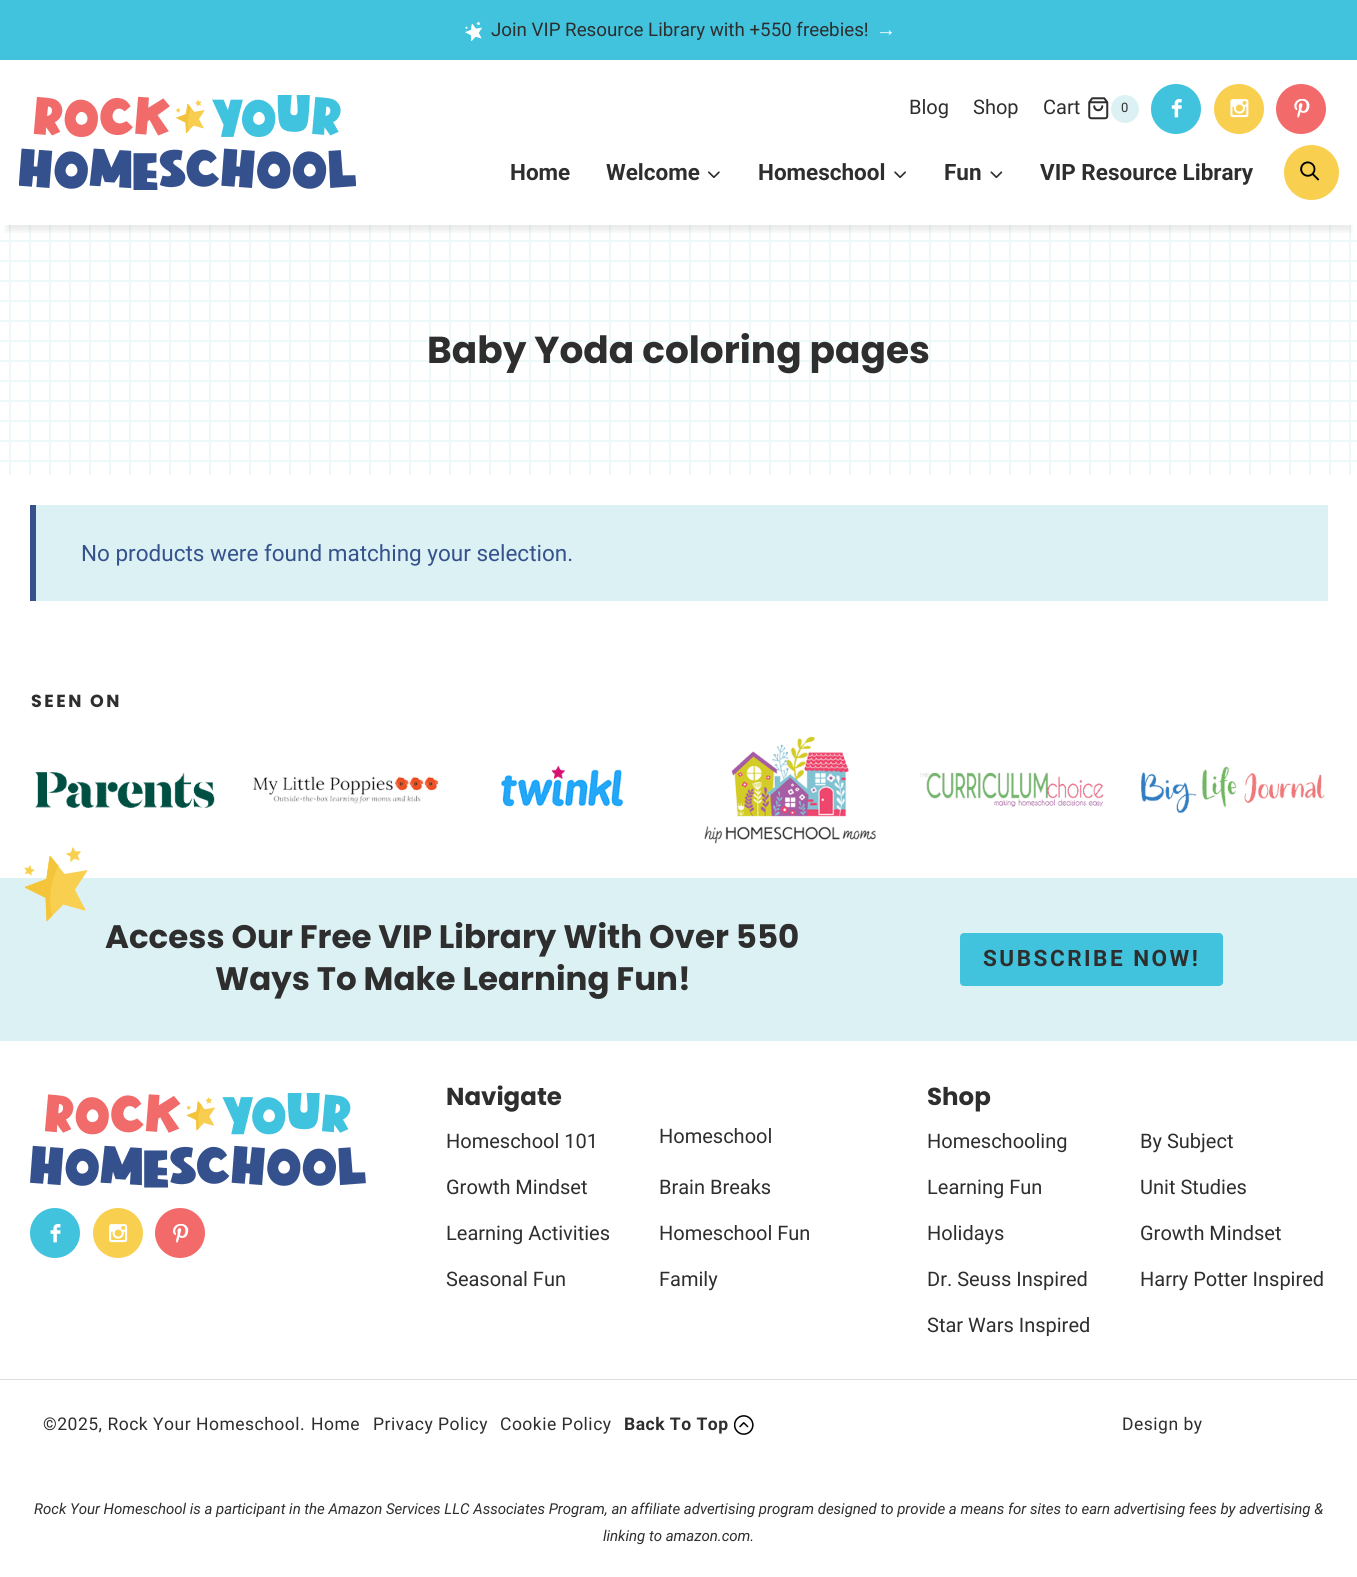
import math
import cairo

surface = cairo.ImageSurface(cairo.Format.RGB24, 1357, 1577)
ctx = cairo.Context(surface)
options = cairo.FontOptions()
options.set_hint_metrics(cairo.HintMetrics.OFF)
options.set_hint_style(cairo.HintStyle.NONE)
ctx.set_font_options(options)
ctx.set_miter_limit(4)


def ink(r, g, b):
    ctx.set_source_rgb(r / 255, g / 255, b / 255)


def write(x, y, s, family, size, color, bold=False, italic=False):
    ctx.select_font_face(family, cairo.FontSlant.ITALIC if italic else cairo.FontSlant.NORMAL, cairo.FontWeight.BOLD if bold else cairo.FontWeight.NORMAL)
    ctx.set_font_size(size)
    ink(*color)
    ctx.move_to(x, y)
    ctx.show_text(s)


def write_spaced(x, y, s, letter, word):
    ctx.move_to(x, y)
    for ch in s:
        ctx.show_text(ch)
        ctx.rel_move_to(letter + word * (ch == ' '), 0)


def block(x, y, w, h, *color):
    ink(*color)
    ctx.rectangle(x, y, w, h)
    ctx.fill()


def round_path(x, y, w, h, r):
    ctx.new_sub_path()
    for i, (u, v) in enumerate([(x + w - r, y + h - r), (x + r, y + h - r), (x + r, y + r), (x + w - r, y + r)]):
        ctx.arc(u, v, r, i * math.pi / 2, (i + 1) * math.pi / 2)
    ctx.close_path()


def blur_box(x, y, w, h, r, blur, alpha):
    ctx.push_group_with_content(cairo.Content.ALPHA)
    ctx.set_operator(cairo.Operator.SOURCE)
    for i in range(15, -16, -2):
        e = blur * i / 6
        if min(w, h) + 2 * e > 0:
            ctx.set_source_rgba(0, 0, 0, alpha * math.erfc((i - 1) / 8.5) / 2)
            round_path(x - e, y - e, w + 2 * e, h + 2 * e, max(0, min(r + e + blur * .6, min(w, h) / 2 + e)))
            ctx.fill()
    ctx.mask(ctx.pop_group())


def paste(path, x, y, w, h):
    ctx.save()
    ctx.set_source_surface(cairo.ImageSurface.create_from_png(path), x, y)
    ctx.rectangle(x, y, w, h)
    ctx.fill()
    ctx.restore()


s1 = dict(family="Roboto", size=18.75, color=(46, 46, 46))
s2 = dict(family="Liberation Sans", size=20, color=(255, 255, 255))
s3 = dict(family="Roboto", size=20, color=(46, 46, 46))
s4 = dict(family="Roboto", size=13, color=(46, 46, 46))
s5 = dict(family="Roboto", size=22.5, color=(46, 46, 46), bold=True)
s6 = dict(family="Poppins", size=37.5, color=(46, 46, 46), bold=True)
s7 = dict(family="Roboto", size=22.5, color=(54, 82, 141))
s8 = dict(family="Poppins", size=32.5, color=(46, 46, 46), bold=True)
s9 = dict(family="Poppins", size=24.5, color=(46, 46, 46), bold=True)
s10 = dict(family="Roboto", size=15, color=(46, 46, 46), italic=True)

ink(255, 255, 255)
ctx.paint()
block(0, 0, 1357, 60, 65, 195, 222)
paste("pic1.png", 465, 21, 17, 20)
write(491, 36, "Join VIP Resource Library with +550 freebies!", **s1)
write(876, 36, "→", **s2)
paste("pic11.png", 0, 225, 1357, 250)
ctx.save()
ctx.rectangle(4, 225, 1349, 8)
ctx.clip()
ink(0, 0, 0)
blur_box(6, 79, 1345, 152, 0, 3, 0.08)
ctx.restore()
paste("pic2.png", 19, 95, 337, 95)
write(909, 114, "Blog", **s3)
write(973, 114, "Shop", **s3)
write(1043, 114, "Cart", **s3)
paste("pic3.png", 1088, 97, 21, 23)
ink(220, 241, 244)
ctx.arc(1125, 109, 14, 0, 2 * math.pi)
ctx.fill()
write(1121, 112, "0", **s4)
ink(65, 195, 222)
ctx.new_path()
ctx.arc(1176, 109, 25, 0, 2 * math.pi)
ctx.fill()
paste("pic4.png", 1171, 99, 11, 19)
ink(248, 207, 79)
ctx.arc(1239, 109, 25, 0, 2 * math.pi)
ctx.fill()
paste("pic5.png", 1230, 99, 19, 19)
ink(242, 107, 106)
ctx.arc(1301, 109, 25, 0, 2 * math.pi)
ctx.fill()
paste("pic6.png", 1294, 99, 16, 19)
write(510, 180, "Home", **s5)
write(606, 180, "Welcome", **s5)
paste("pic7.png", 708, 171, 12, 8)
write(758, 180, "Homeschool", **s5)
paste("pic8.png", 894, 171, 12, 8)
write(944, 180, "Fun", **s5)
paste("pic9.png", 990, 171, 13, 8)
write(1040, 180, "VIP Resource Library", **s5)
ink(248, 207, 79)
ctx.new_path()
ctx.arc(1311.5, 172.5, 27.5, 0, 2 * math.pi)
ctx.fill()
paste("pic10.png", 1300, 161, 20, 20)
write(427, 363, "Baby Yoda coloring pages", **s6)
block(36, 505, 1292, 96, 220, 241, 244)
block(30, 505, 6, 96, 54, 82, 141)
write(81, 561, "No products were found matching your selection.", **s7)
ctx.select_font_face("Poppins", cairo.FontSlant.NORMAL, cairo.FontWeight.BOLD)
ctx.set_font_size(17.5)
ink(46, 46, 46)
write_spaced(31, 707, "SEEN ON", 2.5, 0)
paste("pic12.png", 35, 772, 180, 36)
paste("pic13.png", 253, 776, 186, 28)
paste("pic14.png", 501, 766, 122, 41)
paste("pic15.png", 704, 736, 172, 108)
paste("pic16.png", 919, 772, 185, 35)
paste("pic17.png", 1141, 766, 184, 48)
block(0, 878, 1357, 163, 220, 241, 244)
paste("pic18.png", 24, 847, 64, 74)
write(105, 948, "Access Our Free VIP Library With Over 550", **s8)
write(215, 990, "Ways To Make Learning Fun!", **s8)
ink(65, 195, 222)
round_path(960, 933, 263, 53, 4)
ctx.fill()
ctx.select_font_face("Roboto", cairo.FontSlant.NORMAL, cairo.FontWeight.BOLD)
ctx.set_font_size(22.5)
ink(46, 46, 46)
write_spaced(983, 966, "SUBSCRIBE NOW!", 2.5, 0)
paste("pic19.png", 30, 1093, 336, 95)
ink(65, 195, 222)
ctx.arc(55, 1233, 25, 0, 2 * math.pi)
ctx.fill()
paste("pic20.png", 50, 1224, 11, 19)
ink(248, 207, 79)
ctx.arc(118, 1233, 25, 0, 2 * math.pi)
ctx.fill()
paste("pic21.png", 109, 1224, 19, 19)
ink(242, 107, 106)
ctx.arc(180, 1233, 25, 0, 2 * math.pi)
ctx.fill()
paste("pic22.png", 173, 1224, 16, 19)
write(446, 1105, "Navigate", **s9)
write(446, 1148, "Homeschool 101", **s3)
write(659, 1143, "Homeschool", **s3)
write(446, 1194, "Growth Mindset", **s3)
write(659, 1194, "Brain Breaks", **s3)
write(446, 1240, "Learning Activities", **s3)
write(659, 1240, "Homeschool Fun", **s3)
write(446, 1286, "Seasonal Fun", **s3)
write(659, 1286, "Family", **s3)
write(927, 1105, "Shop", **s9)
write(927, 1148, "Homeschooling", **s3)
write(1140, 1148, "By Subject", **s3)
write(927, 1194, "Learning Fun", **s3)
write(1140, 1194, "Unit Studies", **s3)
write(927, 1240, "Holidays", **s3)
write(1140, 1240, "Growth Mindset", **s3)
write(927, 1286, "Dr. Seuss Inspired", **s3)
write(1140, 1286, "Harry Potter Inspired", **s3)
write(927, 1332, "Star Wars Inspired", **s3)
block(0, 1379, 1357, 1, 221, 221, 221)
ctx.set_font_size(17.5)
ink(46, 46, 46)
write_spaced(43, 1430, "©2025, Rock Your Homeschool.", 0.5, 0)
write_spaced(311, 1430, "Home", 0.5, 0)
write_spaced(373, 1430, "Privacy Policy", 0.5, 0)
write_spaced(500, 1430, "Cookie Policy", 0.5, 0)
ctx.select_font_face("Roboto", cairo.FontSlant.NORMAL, cairo.FontWeight.BOLD)
write_spaced(624, 1430, "Back To Top", 0.5, 0)
paste("pic23.png", 734, 1415, 20, 20)
ctx.select_font_face("Roboto")
write_spaced(1122, 1430, "Design by", 0.5, 0)
write(34, 1514, "Rock Your Homeschool is a participant in the Amazon Services LLC Associates Program, an affiliate advertising program designed to provide a means for sites to earn advertising fees by advertising &", **s10)
write(603, 1541, "linking to amazon.com.", **s10)
surface.write_to_png("screenshot.png")
